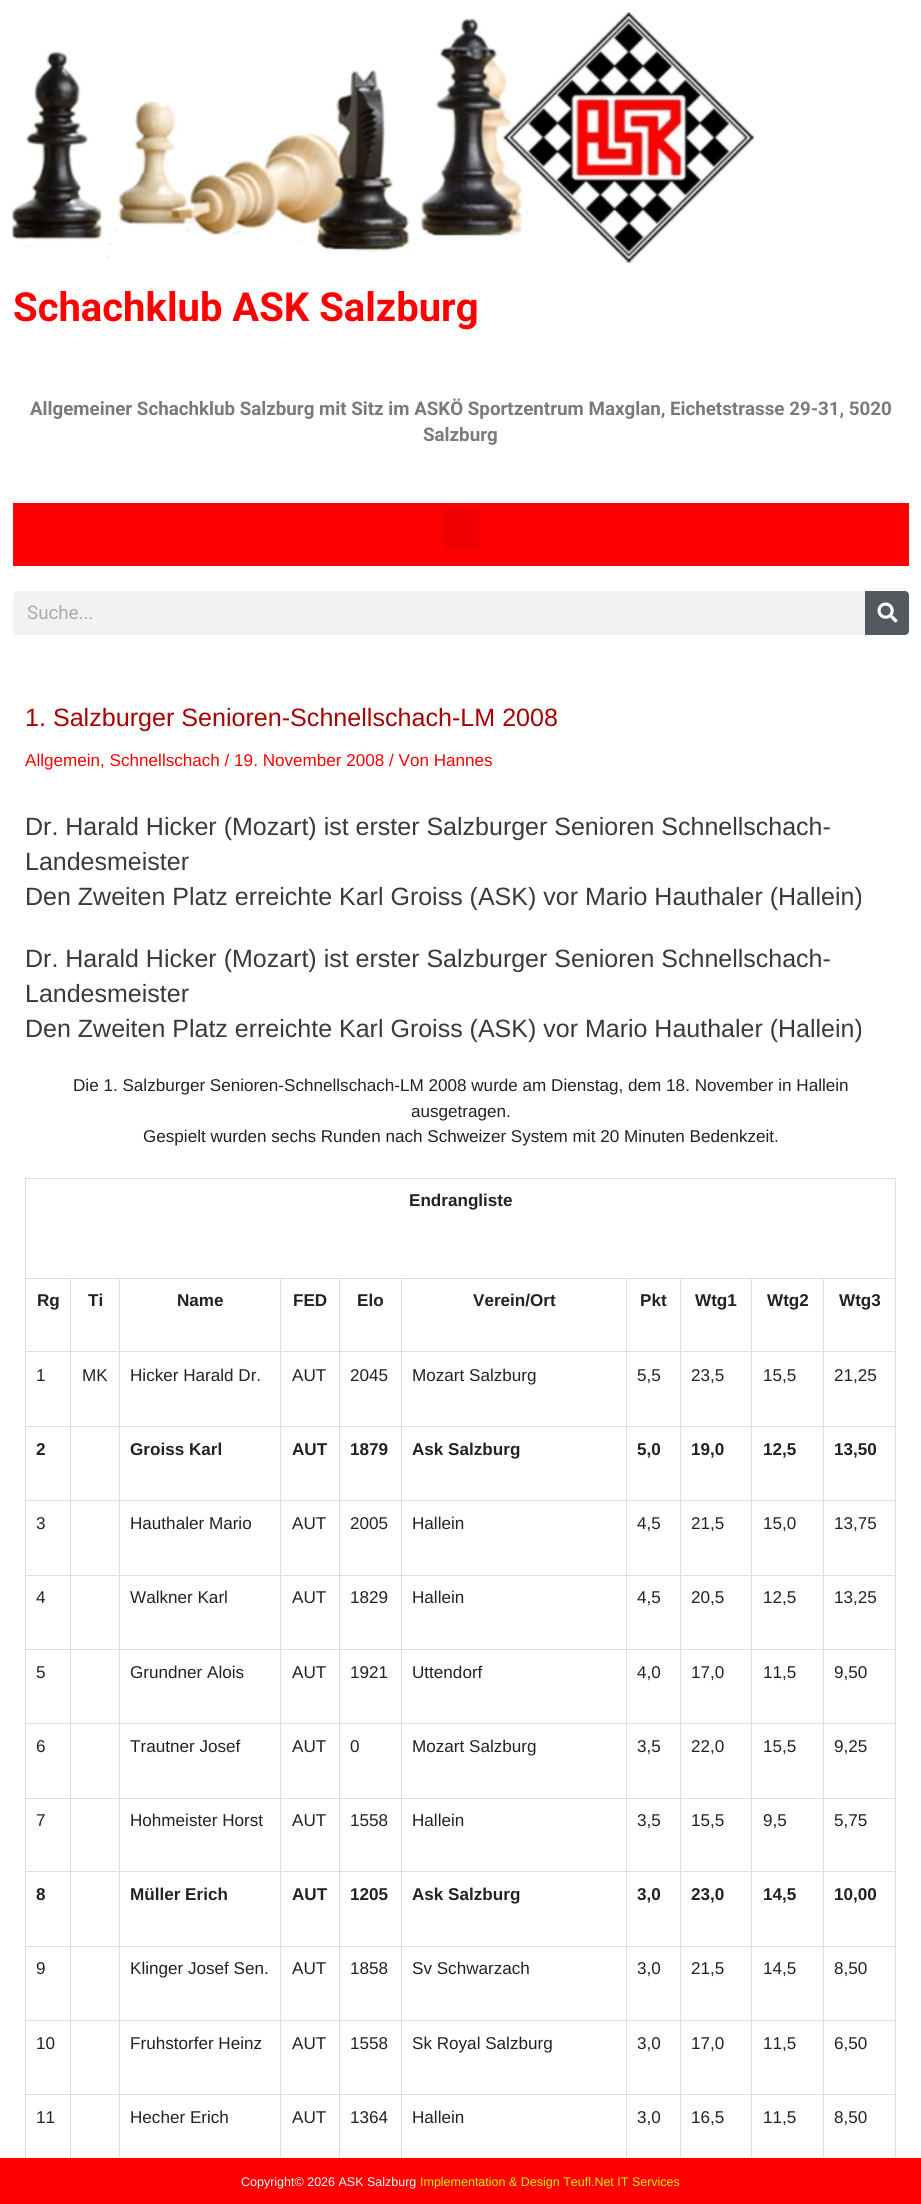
import math
import cairo

surface = cairo.ImageSurface(cairo.Format.RGB24, 921, 2204)
ctx = cairo.Context(surface)
options = cairo.FontOptions()
options.set_hint_metrics(cairo.HintMetrics.OFF)
options.set_hint_style(cairo.HintStyle.NONE)
ctx.set_font_options(options)
ctx.set_miter_limit(4)


def ink(r, g, b):
    ctx.set_source_rgb(r / 255, g / 255, b / 255)


def write(x, y, s, family, size, color, bold=False, italic=False):
    ctx.select_font_face(family, cairo.FontSlant.ITALIC if italic else cairo.FontSlant.NORMAL, cairo.FontWeight.BOLD if bold else cairo.FontWeight.NORMAL)
    ctx.set_font_size(size)
    ink(*color)
    ctx.move_to(x, y)
    ctx.show_text(s)


def block(x, y, w, h, *color):
    ink(*color)
    ctx.rectangle(x, y, w, h)
    ctx.fill()


def round_path(x, y, w, h, r):
    ctx.new_sub_path()
    for i, (u, v) in enumerate([(x + w - r, y + h - r), (x + r, y + h - r), (x + r, y + r), (x + w - r, y + r)]):
        ctx.arc(u, v, r, i * math.pi / 2, (i + 1) * math.pi / 2)
    ctx.close_path()


def paste(path, x, y, w, h):
    ctx.save()
    ctx.set_source_surface(cairo.ImageSurface.create_from_png(path), x, y)
    ctx.rectangle(x, y, w, h)
    ctx.fill()
    ctx.restore()


s1 = dict(family="Roboto", size=40, color=(254, 0, 0), bold=True)
s2 = dict(family="Roboto", size=18.75, color=(122, 122, 122), bold=True)
s3 = dict(family="Roboto", size=18.75, color=(170, 170, 170))
s4 = dict(family="Liberation Sans", size=25.1, color=(170, 0, 0))
s5 = dict(family="Liberation Sans", size=17.1, color=(254, 0, 0))
s6 = dict(family="Liberation Sans", size=25, color=(58, 58, 58))
s7 = dict(family="Liberation Sans", size=17.1, color=(34, 34, 34))
s8 = dict(family="Liberation Sans", size=17.1, color=(34, 34, 34), bold=True)
s9 = dict(family="Liberation Sans", size=12.5, color=(255, 255, 255))
s10 = dict(family="Liberation Sans", size=12.5, color=(238, 238, 0))

ink(255, 255, 255)
ctx.paint()
paste("pic1.png", 12, 12, 742, 251)
write(13, 321, "Schachklub ASK Salzburg", **s1)
write(30, 415, "Allgemeiner Schachklub Salzburg mit Sitz im ASKÖ Sportzentrum Maxglan, Eichetstrasse 29-31, 5020", **s2)
write(423, 441, "Salzburg", **s2)
block(13, 503, 896, 63, 254, 0, 0)
ink(241, 0, 0)
round_path(443, 509, 36, 41, 4)
ctx.fill()
ink(241, 242, 243)
round_path(13, 591, 896, 44, 4)
ctx.fill()
write(27, 619, "Suche...", **s3)
ink(84, 89, 95)
ctx.new_path()
ctx.move_to(865, 591)
ctx.line_to(905, 591)
ctx.curve_to(907, 591, 909, 593, 909, 595)
ctx.line_to(909, 631)
ctx.curve_to(909, 633, 907, 635, 905, 635)
ctx.line_to(865, 635)
ctx.close_path()
ctx.fill()
paste("pic2.png", 877, 602, 21, 21)
write(25, 726, "1. Salzburger Senioren-Schnellschach-LM 2008", **s4)
write(25, 766, "Allgemein, Schnellschach / 19. November 2008 / Von Hannes", **s5)
write(25, 835, "Dr. Harald Hicker (Mozart) ist erster Salzburger Senioren Schnellschach-", **s6)
write(25, 870, "Landesmeister", **s6)
write(25, 905, "Den Zweiten Platz erreichte Karl Groiss (ASK) vor Mario Hauthaler (Hallein)", **s6)
write(25, 967, "Dr. Harald Hicker (Mozart) ist erster Salzburger Senioren Schnellschach-", **s6)
write(25, 1002, "Landesmeister", **s6)
write(25, 1037, "Den Zweiten Platz erreichte Karl Groiss (ASK) vor Mario Hauthaler (Hallein)", **s6)
write(73, 1091, "Die 1. Salzburger Senioren-Schnellschach-LM 2008 wurde am Dienstag, dem 18. November in Hallein", **s7)
write(411, 1117, "ausgetragen.", **s7)
write(143, 1142, "Gespielt wurden sechs Runden nach Schweizer System mit 20 Minuten Bedenkzeit.", **s7)
block(25, 1178, 871, 1, 221, 221, 221)
block(25, 1178, 1, 980, 221, 221, 221)
block(895, 1179, 1, 979, 221, 221, 221)
block(26, 1278, 870, 1, 221, 221, 221)
write(409, 1206, "Endrangliste", **s8)
block(70, 1279, 1, 879, 221, 221, 221)
block(26, 1351, 45, 1, 221, 221, 221)
write(37, 1306, "Rg", **s8)
block(119, 1279, 1, 879, 221, 221, 221)
block(71, 1351, 49, 1, 221, 221, 221)
write(88, 1306, "Ti", **s8)
block(280, 1279, 1, 879, 221, 221, 221)
block(120, 1351, 161, 1, 221, 221, 221)
write(177, 1306, "Name", **s8)
block(339, 1279, 1, 879, 221, 221, 221)
block(281, 1351, 59, 1, 221, 221, 221)
write(293, 1306, "FED", **s8)
block(401, 1279, 1, 879, 221, 221, 221)
block(340, 1351, 63, 1, 221, 221, 221)
write(357, 1306, "Elo", **s8)
block(626, 1279, 1, 879, 221, 221, 221)
block(403, 1351, 225, 1, 221, 221, 221)
write(473, 1306, "Verein/Ort", **s8)
block(680, 1279, 1, 879, 221, 221, 221)
block(628, 1351, 53, 1, 221, 221, 221)
write(640, 1306, "Pkt", **s8)
block(751, 1279, 1, 879, 221, 221, 221)
block(681, 1351, 72, 1, 221, 221, 221)
write(695, 1306, "Wtg1", **s8)
block(823, 1279, 1, 879, 221, 221, 221)
block(753, 1351, 143, 1, 221, 221, 221)
write(767, 1306, "Wtg2", **s8)
write(839, 1306, "Wtg3", **s8)
block(26, 1426, 870, 1, 221, 221, 221)
write(36, 1381, "1", **s7)
write(82, 1381, "MK", **s7)
write(130, 1381, "Hicker Harald Dr.", **s7)
write(292, 1381, "AUT", **s7)
write(350, 1381, "2045", **s7)
write(412, 1381, "Mozart Salzburg", **s7)
write(637, 1381, "5,5", **s7)
write(691, 1381, "23,5", **s7)
write(763, 1381, "15,5", **s7)
write(834, 1381, "21,25", **s7)
block(26, 1500, 870, 1, 221, 221, 221)
write(36, 1455, "2", **s8)
write(130, 1455, "Groiss Karl", **s8)
write(292, 1455, "AUT", **s8)
write(350, 1455, "1879", **s8)
write(412, 1455, "Ask Salzburg", **s8)
write(637, 1455, "5,0", **s8)
write(691, 1455, "19,0", **s8)
write(763, 1455, "12,5", **s8)
write(834, 1455, "13,50", **s8)
block(26, 1575, 870, 1, 221, 221, 221)
write(36, 1529, "3", **s7)
write(130, 1529, "Hauthaler Mario", **s7)
write(292, 1529, "AUT", **s7)
write(350, 1529, "2005", **s7)
write(412, 1529, "Hallein", **s7)
write(637, 1529, "4,5", **s7)
write(691, 1529, "21,5", **s7)
write(763, 1529, "15,0", **s7)
write(834, 1529, "13,75", **s7)
block(26, 1649, 870, 1, 221, 221, 221)
write(36, 1603, "4", **s7)
write(130, 1603, "Walkner Karl", **s7)
write(292, 1603, "AUT", **s7)
write(350, 1603, "1829", **s7)
write(412, 1603, "Hallein", **s7)
write(637, 1603, "4,5", **s7)
write(691, 1603, "20,5", **s7)
write(763, 1603, "12,5", **s7)
write(834, 1603, "13,25", **s7)
block(26, 1723, 870, 1, 221, 221, 221)
write(36, 1678, "5", **s7)
write(130, 1678, "Grundner Alois", **s7)
write(292, 1678, "AUT", **s7)
write(350, 1678, "1921", **s7)
write(412, 1678, "Uttendorf", **s7)
write(637, 1678, "4,0", **s7)
write(691, 1678, "17,0", **s7)
write(763, 1678, "11,5", **s7)
write(834, 1678, "9,50", **s7)
block(26, 1798, 870, 1, 221, 221, 221)
write(36, 1752, "6", **s7)
write(130, 1752, "Trautner Josef", **s7)
write(292, 1752, "AUT", **s7)
write(350, 1752, "0", **s7)
write(412, 1752, "Mozart Salzburg", **s7)
write(637, 1752, "3,5", **s7)
write(691, 1752, "22,0", **s7)
write(763, 1752, "15,5", **s7)
write(834, 1752, "9,25", **s7)
block(26, 1871, 870, 1, 221, 221, 221)
write(36, 1826, "7", **s7)
write(130, 1826, "Hohmeister Horst", **s7)
write(292, 1826, "AUT", **s7)
write(350, 1826, "1558", **s7)
write(412, 1826, "Hallein", **s7)
write(637, 1826, "3,5", **s7)
write(691, 1826, "15,5", **s7)
write(763, 1826, "9,5", **s7)
write(834, 1826, "5,75", **s7)
block(26, 1946, 870, 1, 221, 221, 221)
write(36, 1900, "8", **s8)
write(130, 1900, "Müller Erich", **s8)
write(292, 1900, "AUT", **s8)
write(350, 1900, "1205", **s8)
write(412, 1900, "Ask Salzburg", **s8)
write(637, 1900, "3,0", **s8)
write(691, 1900, "23,0", **s8)
write(763, 1900, "14,5", **s8)
write(834, 1900, "10,00", **s8)
block(26, 2020, 870, 1, 221, 221, 221)
write(36, 1974, "9", **s7)
write(130, 1974, "Klinger Josef Sen.", **s7)
write(292, 1974, "AUT", **s7)
write(350, 1974, "1858", **s7)
write(412, 1974, "Sv Schwarzach", **s7)
write(637, 1974, "3,0", **s7)
write(691, 1974, "21,5", **s7)
write(763, 1974, "14,5", **s7)
write(834, 1974, "8,50", **s7)
block(26, 2094, 870, 1, 221, 221, 221)
write(36, 2049, "10", **s7)
write(130, 2049, "Fruhstorfer Heinz", **s7)
write(292, 2049, "AUT", **s7)
write(350, 2049, "1558", **s7)
write(412, 2049, "Sk Royal Salzburg", **s7)
write(637, 2049, "3,0", **s7)
write(691, 2049, "17,0", **s7)
write(763, 2049, "11,5", **s7)
write(834, 2049, "6,50", **s7)
write(36, 2123, "11", **s7)
write(130, 2123, "Hecher Erich", **s7)
write(292, 2123, "AUT", **s7)
write(350, 2123, "1364", **s7)
write(412, 2123, "Hallein", **s7)
write(637, 2123, "3,0", **s7)
write(691, 2123, "16,5", **s7)
write(763, 2123, "11,5", **s7)
write(834, 2123, "8,50", **s7)
block(0, 2158, 921, 46, 254, 0, 0)
write(241, 2186, "Copyright© 2026 ASK Salzburg", **s9)
write(420, 2186, "Implementation & Design Teufl.Net IT Services", **s10)
surface.write_to_png("screenshot.png")
